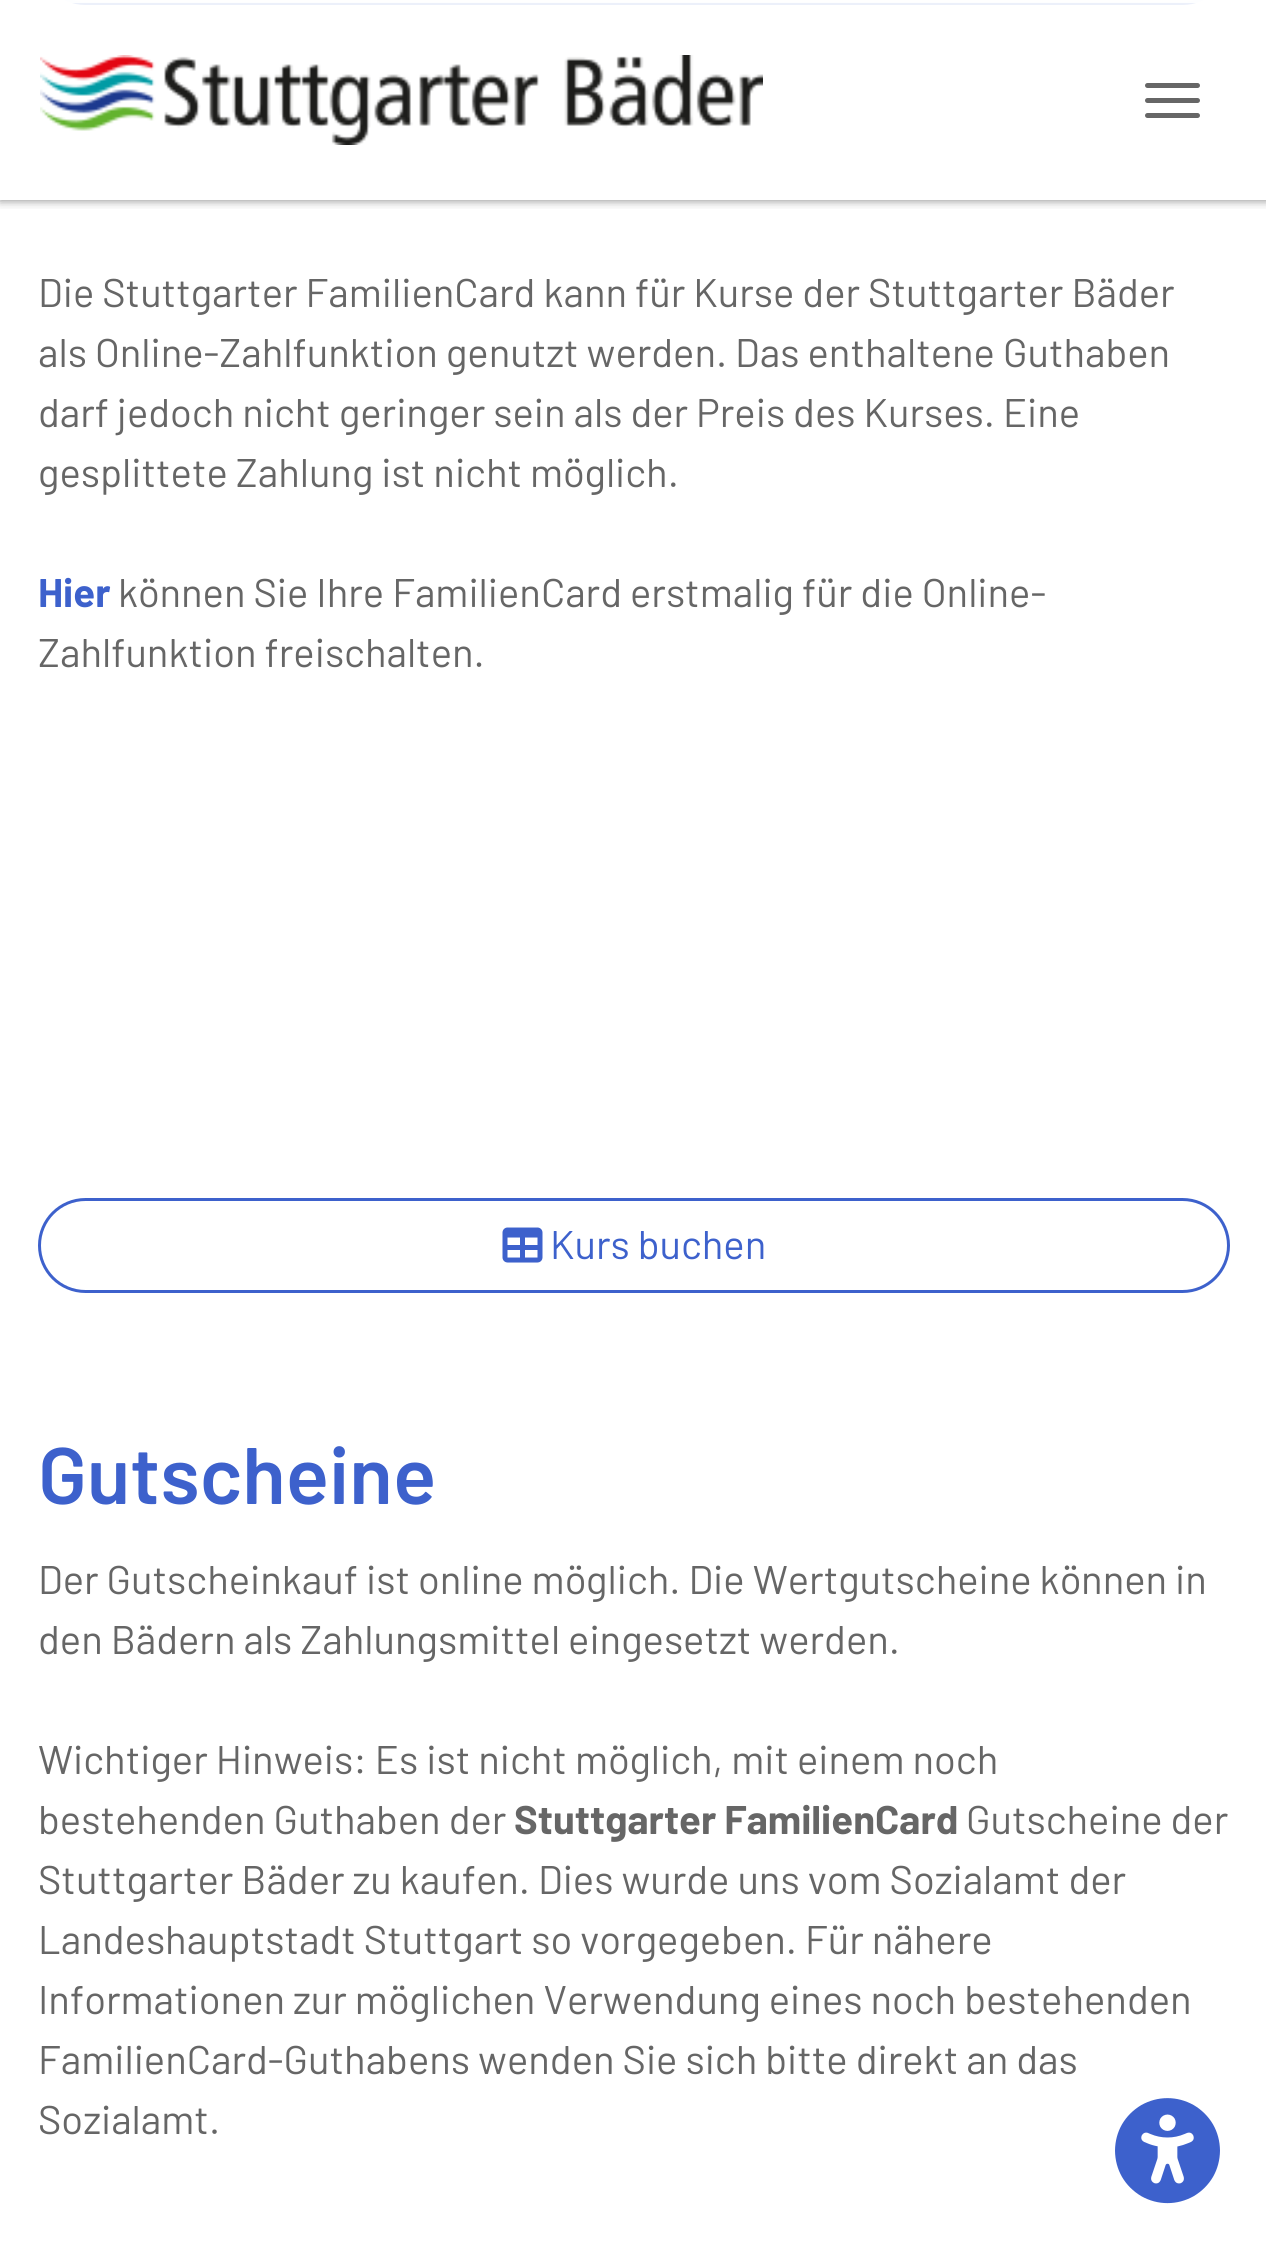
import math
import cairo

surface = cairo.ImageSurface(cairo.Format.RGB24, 1266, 2249)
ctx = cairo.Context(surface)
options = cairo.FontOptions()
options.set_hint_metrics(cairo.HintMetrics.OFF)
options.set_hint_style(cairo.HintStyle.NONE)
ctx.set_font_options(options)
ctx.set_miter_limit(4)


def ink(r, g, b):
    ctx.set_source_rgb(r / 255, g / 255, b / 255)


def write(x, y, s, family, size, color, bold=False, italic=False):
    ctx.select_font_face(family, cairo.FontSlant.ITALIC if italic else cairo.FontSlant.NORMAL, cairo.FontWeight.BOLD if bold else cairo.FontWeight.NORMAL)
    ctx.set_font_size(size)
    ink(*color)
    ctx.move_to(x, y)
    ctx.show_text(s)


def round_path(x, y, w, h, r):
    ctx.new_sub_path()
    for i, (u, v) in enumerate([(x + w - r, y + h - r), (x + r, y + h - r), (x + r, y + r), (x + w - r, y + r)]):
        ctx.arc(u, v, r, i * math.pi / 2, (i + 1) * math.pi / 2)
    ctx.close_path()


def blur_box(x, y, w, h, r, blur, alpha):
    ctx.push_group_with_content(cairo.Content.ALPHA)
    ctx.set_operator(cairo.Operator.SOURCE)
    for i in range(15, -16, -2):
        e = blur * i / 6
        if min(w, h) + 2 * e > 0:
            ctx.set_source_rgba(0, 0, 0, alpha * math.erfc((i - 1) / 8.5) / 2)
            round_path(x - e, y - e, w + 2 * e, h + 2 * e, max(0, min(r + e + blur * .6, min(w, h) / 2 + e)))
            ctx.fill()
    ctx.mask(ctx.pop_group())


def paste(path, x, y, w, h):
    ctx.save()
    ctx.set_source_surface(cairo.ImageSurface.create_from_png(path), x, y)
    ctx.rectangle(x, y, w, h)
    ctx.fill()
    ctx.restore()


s1 = dict(family="Barlow", size=40, color=(102, 102, 102))
s2 = dict(family="Barlow", size=40, color=(61, 97, 204), bold=True)
s3 = dict(family="Barlow", size=40, color=(61, 97, 204))
s4 = dict(family="Barlow SemiBold", size=80, color=(61, 97, 204))
s5 = dict(family="Barlow", size=40, color=(102, 102, 102), bold=True)

ink(255, 255, 255)
ctx.paint()
round_path(39.5, -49.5, 1189, 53, 46)
ink(61, 97, 204)
ctx.set_line_width(3)
ctx.stroke()
ctx.save()
ctx.rectangle(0, 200, 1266, 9)
ctx.clip()
ink(0, 0, 0)
blur_box(0, 0, 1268, 200, 0, 5, 0.5)
ctx.restore()
ctx.set_source_rgba(1, 1, 1, 0.9)
ctx.rectangle(64, 0, 1140, 5)
ctx.fill()
ctx.rectangle(1.5, 1.5, 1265, 197)
ctx.stroke()
paste("pic1.png", 40, 55, 723, 90)
ink(102, 102, 102)
round_path(1145, 83, 55, 5, 2.5)
ctx.fill()
round_path(1145, 98, 55, 5, 2.5)
ctx.fill()
round_path(1145, 113, 55, 5, 2.5)
ctx.fill()
write(38, 307, "Die Stuttgarter FamilienCard kann für Kurse der Stuttgarter Bäder", **s1)
write(38, 367, "als Online-Zahlfunktion genutzt werden. Das enthaltene Guthaben", **s1)
write(38, 427, "darf jedoch nicht geringer sein als der Preis des Kurses. Eine", **s1)
write(38, 487, "gesplittete Zahlung ist nicht möglich.", **s1)
write(38, 607, "Hier", **s2)
write(118, 607, "können Sie Ihre FamilienCard erstmalig für die Online-", **s1)
write(38, 667, "Zahlfunktion freischalten.", **s1)
round_path(39.5, 1199.5, 1189, 92, 46)
ink(61, 97, 204)
ctx.stroke()
paste("pic2.png", 502, 1227, 41, 36)
write(550, 1259, "Kurs buchen", **s3)
write(38, 1504, "Gutscheine", **s4)
write(38, 1594, "Der Gutscheinkauf ist online möglich. Die Wertgutscheine können in", **s1)
write(38, 1654, "den Bädern als Zahlungsmittel eingesetzt werden.", **s1)
write(38, 1774, "Wichtiger Hinweis: Es ist nicht möglich, mit einem noch", **s1)
write(38, 1834, "bestehenden Guthaben der", **s1)
write(514, 1834, "Stuttgarter FamilienCard", **s5)
write(966, 1834, "Gutscheine der", **s1)
write(38, 1894, "Stuttgarter Bäder zu kaufen. Dies wurde uns vom Sozialamt der", **s1)
write(38, 1954, "Landeshauptstadt Stuttgart so vorgegeben. Für nähere", **s1)
write(38, 2014, "Informationen zur möglichen Verwendung eines noch bestehenden", **s1)
write(38, 2074, "FamilienCard-Guthabens wenden Sie sich bitte direkt an das", **s1)
write(38, 2134, "Sozialamt.", **s1)
paste("pic3.png", 1115, 2098, 105, 106)
surface.write_to_png("screenshot.png")
